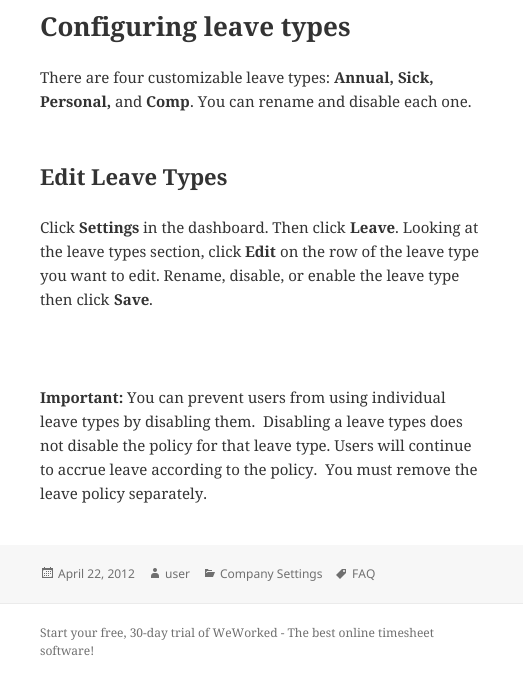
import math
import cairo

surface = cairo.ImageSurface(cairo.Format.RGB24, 523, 680)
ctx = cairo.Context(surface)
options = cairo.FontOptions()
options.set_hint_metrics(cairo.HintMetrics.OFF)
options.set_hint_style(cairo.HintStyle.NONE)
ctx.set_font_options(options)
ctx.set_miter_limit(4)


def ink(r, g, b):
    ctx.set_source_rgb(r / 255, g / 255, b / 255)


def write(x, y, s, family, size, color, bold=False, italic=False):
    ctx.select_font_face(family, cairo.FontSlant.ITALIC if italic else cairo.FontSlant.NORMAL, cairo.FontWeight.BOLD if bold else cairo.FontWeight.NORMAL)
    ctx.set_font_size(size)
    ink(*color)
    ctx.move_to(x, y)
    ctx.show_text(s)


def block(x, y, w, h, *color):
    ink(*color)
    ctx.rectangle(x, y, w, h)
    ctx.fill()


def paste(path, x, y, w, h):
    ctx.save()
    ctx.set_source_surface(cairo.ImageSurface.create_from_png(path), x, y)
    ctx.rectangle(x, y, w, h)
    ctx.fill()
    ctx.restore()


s1 = dict(family="Noto Serif", size=26, color=(51, 51, 51), bold=True)
s2 = dict(family="Noto Serif", size=15, color=(51, 51, 51))
s3 = dict(family="Noto Serif", size=15, color=(51, 51, 51), bold=True)
s4 = dict(family="Noto Serif", size=22, color=(51, 51, 51), bold=True)
s5 = dict(family="Noto Sans", size=12, color=(112, 112, 112))
s6 = dict(family="Noto Serif", size=12, color=(112, 112, 112))

ink(255, 255, 255)
ctx.paint()
write(40, 36, "Configuring leave types", **s1)
write(40, 83, "There are four customizable leave types:", **s2)
write(334, 83, "Annual, Sick,", **s3)
write(40, 107, "Personal,", **s3)
write(115, 107, "and", **s2)
write(146, 107, "Comp", **s3)
write(190, 107, ". You can rename and disable each one.", **s2)
write(40, 185, "Edit Leave Types", **s4)
write(40, 233, "Click", **s2)
write(79, 233, "Settings", **s3)
write(143, 233, "in the dashboard. Then click", **s2)
write(350, 233, "Leave", **s3)
write(395, 233, ". Looking at", **s2)
write(40, 257, "the leave types section, click", **s2)
write(245, 257, "Edit", **s3)
write(280, 257, "on the row of the leave type", **s2)
write(40, 281, "you want to edit. Rename, disable, or enable the leave type", **s2)
write(40, 305, "then click", **s2)
write(114, 305, "Save", **s3)
write(149, 305, ".", **s2)
write(40, 403, "Important:", **s3)
write(127, 403, "You can prevent users from using individual", **s2)
write(40, 427, "leave types by disabling them.  Disabling a leave types does", **s2)
write(40, 451, "not disable the policy for that leave type. Users will continue", **s2)
write(40, 475, "to accrue leave according to the policy.  You must remove the", **s2)
write(40, 499, "leave policy separately.", **s2)
block(0, 545, 523, 58, 247, 247, 247)
paste("pic1.png", 42, 567, 11, 11)
write(58, 578, "April 22, 2012", **s5)
paste("pic2.png", 151, 568, 8, 10)
write(165, 578, "user", **s5)
paste("pic3.png", 205, 569, 10, 8)
write(220, 578, "Company Settings", **s5)
paste("pic4.png", 336, 569, 10, 10)
write(352, 578, "FAQ", **s5)
block(0, 603, 523, 1, 235, 235, 235)
write(40, 637, "Start your free, 30-day trial of WeWorked - The best online timesheet", **s6)
write(40, 655, "software!", **s6)
surface.write_to_png("screenshot.png")
